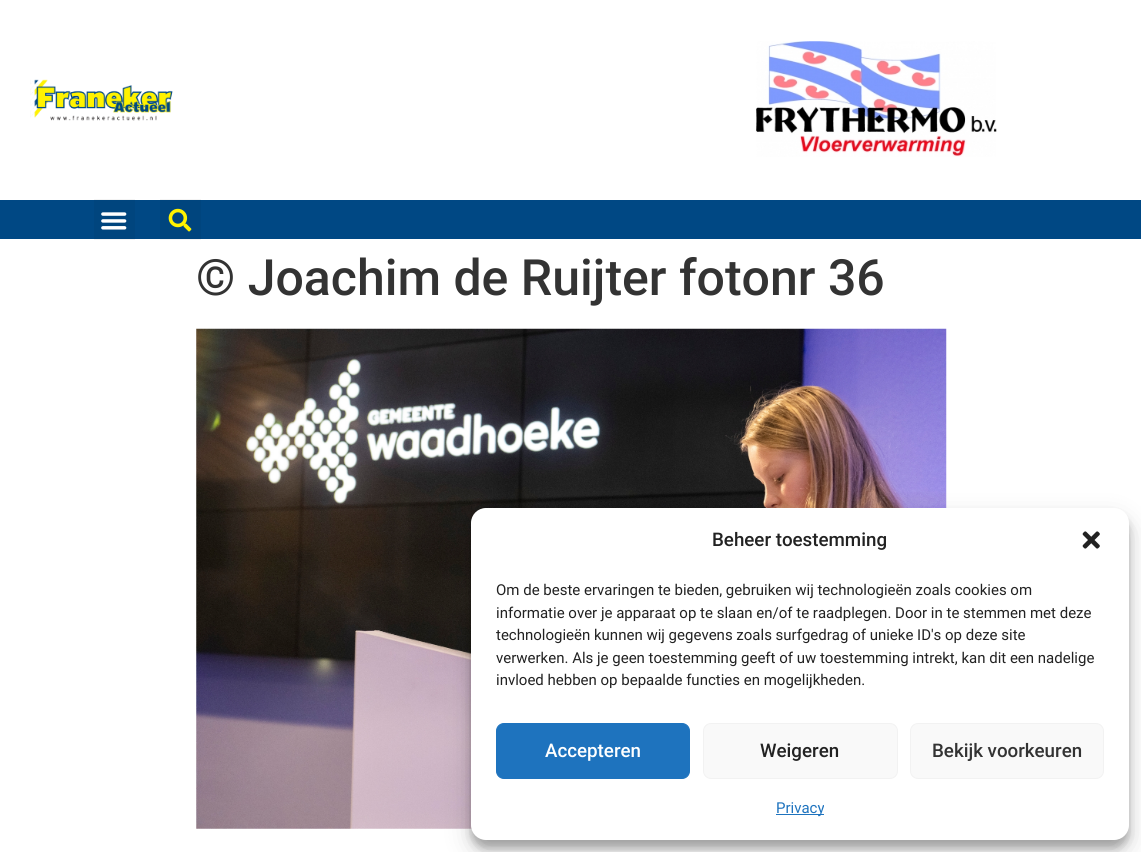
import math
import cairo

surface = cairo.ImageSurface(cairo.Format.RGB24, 1141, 852)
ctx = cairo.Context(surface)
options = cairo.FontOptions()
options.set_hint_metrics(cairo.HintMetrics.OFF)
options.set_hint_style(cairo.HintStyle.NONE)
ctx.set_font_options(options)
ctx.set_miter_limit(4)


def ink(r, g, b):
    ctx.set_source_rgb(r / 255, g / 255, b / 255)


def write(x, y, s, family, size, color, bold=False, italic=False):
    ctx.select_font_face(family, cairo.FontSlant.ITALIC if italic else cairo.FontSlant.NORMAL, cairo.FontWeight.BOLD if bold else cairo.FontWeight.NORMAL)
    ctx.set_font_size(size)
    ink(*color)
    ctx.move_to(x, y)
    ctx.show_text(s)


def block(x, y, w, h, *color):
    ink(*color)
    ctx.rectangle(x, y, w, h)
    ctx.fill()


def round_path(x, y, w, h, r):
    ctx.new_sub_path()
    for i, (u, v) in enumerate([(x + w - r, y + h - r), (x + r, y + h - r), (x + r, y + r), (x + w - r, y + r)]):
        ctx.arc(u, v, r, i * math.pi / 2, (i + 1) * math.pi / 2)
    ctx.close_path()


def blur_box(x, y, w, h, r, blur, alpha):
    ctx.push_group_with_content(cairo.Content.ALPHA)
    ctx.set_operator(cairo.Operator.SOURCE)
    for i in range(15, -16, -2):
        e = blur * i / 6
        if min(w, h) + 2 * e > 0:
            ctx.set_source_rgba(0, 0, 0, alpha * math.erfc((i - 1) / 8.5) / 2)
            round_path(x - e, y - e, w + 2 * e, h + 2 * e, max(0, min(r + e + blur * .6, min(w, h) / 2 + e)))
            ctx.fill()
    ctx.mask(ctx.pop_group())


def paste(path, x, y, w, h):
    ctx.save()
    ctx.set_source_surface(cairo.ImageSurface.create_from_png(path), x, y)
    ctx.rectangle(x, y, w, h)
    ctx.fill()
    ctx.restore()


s1 = dict(family="Roboto Medium", size=50, color=(51, 51, 51))
s2 = dict(family="Roboto Medium", size=18.75, color=(34, 34, 34))
s3 = dict(family="Roboto", size=15, color=(34, 34, 34))
s4 = dict(family="Roboto Medium", size=18.75, color=(255, 255, 255))
s5 = dict(family="Roboto Medium", size=18.75, color=(51, 51, 51))
s6 = dict(family="Roboto", size=15, color=(30, 115, 190))

ink(255, 255, 255)
ctx.paint()
paste("pic1.png", 30, 79, 143, 42)
paste("pic2.png", 756, 41, 241, 116)
block(0, 200, 1141, 39, 0, 72, 132)
ctx.set_source_rgba(0, 0, 0, 0.05)
ctx.rectangle(94, 199, 41, 41)
ctx.fill()
paste("pic3.png", 101, 212, 26, 18)
ctx.rectangle(160, 199, 41, 41)
ctx.fill()
paste("pic4.png", 168, 208, 24, 24)
write(196, 295, "© Joachim de Ruijter fotonr 36", **s1)
paste("pic5.png", 196, 328, 751, 501)
ink(0, 0, 0)
blur_box(471, 515, 658, 333, 15, 4, 0.23)
blur_box(471, 520, 658, 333, 15, 12.5, 0.19)
ink(255, 255, 255)
round_path(471, 508, 658, 332, 15)
ctx.fill()
write(712, 546, "Beheer toestemming", **s2)
paste("pic6.png", 1082, 531, 18, 18)
write(496, 595, "Om de beste ervaringen te bieden, gebruiken wij technologieën zoals cookies om", **s3)
write(496, 618, "informatie over je apparaat op te slaan en/of te raadplegen. Door in te stemmen met deze", **s3)
write(496, 640, "technologieën kunnen wij gegevens zoals surfgedrag of unieke ID's op deze site", **s3)
write(496, 663, "verwerken. Als je geen toestemming geeft of uw toestemming intrekt, kan dit een nadelige", **s3)
write(496, 685, "invloed hebben op bepaalde functies en mogelijkheden.", **s3)
ink(30, 115, 190)
round_path(496.5, 723.5, 193, 55, 7.5)
ctx.fill_preserve()
ctx.set_line_width(1)
ctx.stroke()
write(545, 757, "Accepteren", **s4)
ink(249, 249, 249)
round_path(703.5, 723.5, 194, 55, 7.5)
ctx.fill_preserve()
ink(242, 242, 242)
ctx.stroke()
write(760, 757, "Weigeren", **s2)
ink(249, 249, 249)
round_path(910.5, 723.5, 193, 55, 7.5)
ctx.fill_preserve()
ink(242, 242, 242)
ctx.stroke()
write(932, 757, "Bekijk voorkeuren", **s5)
block(776, 814, 48, 1, 30, 115, 190)
write(776, 813, "Privacy", **s6)
surface.write_to_png("screenshot.png")
